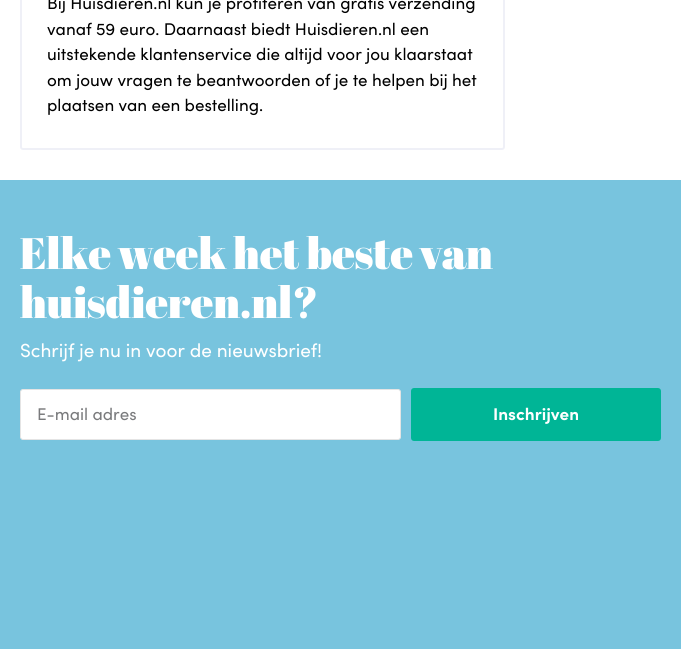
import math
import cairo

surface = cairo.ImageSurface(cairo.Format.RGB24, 681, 649)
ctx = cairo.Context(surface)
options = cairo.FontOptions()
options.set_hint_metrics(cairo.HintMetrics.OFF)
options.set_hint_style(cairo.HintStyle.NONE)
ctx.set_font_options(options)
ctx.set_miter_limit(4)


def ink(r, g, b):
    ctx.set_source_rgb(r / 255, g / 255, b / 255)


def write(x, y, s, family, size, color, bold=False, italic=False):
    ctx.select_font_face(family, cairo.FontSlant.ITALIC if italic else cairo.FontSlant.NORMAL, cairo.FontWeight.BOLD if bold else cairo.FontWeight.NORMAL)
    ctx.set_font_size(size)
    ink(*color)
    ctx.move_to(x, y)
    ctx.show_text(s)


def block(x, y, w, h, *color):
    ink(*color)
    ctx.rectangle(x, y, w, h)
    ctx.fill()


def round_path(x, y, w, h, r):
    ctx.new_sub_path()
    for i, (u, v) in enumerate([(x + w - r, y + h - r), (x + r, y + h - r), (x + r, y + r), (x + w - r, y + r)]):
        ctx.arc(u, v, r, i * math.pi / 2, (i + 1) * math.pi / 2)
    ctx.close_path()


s1 = dict(family="sofia", size=17, color=(0, 0, 0))
s2 = dict(family="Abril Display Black", size=44, color=(255, 255, 255))
s3 = dict(family="sofia", size=19, color=(255, 255, 255))
s4 = dict(family="sofia", size=17, color=(121, 122, 124))
s5 = dict(family="sofia", size=17, color=(255, 255, 255), bold=True)

ink(255, 255, 255)
ctx.paint()
round_path(21, -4, 483, 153, 2)
ink(239, 240, 247)
ctx.stroke()
write(47, 9, "Bij Huisdieren.nl kun je profiteren van gratis verzending", **s1)
write(47, 35, "vanaf 59 euro. Daarnaast biedt Huisdieren.nl een", **s1)
write(47, 60, "uitstekende klantenservice die altijd voor jou klaarstaat", **s1)
write(47, 86, "om jouw vragen te beantwoorden of je te helpen bij het", **s1)
write(47, 111, "plaatsen van een bestelling.", **s1)
block(0, 180, 681, 469, 120, 196, 222)
write(20, 269, "Elke week het beste van", **s2)
write(20, 318, "huisdieren.nl?", **s2)
write(20, 357, "Schrijf je nu in voor de nieuwsbrief!", **s3)
round_path(20.5, 389.5, 380, 50, 2.5)
ctx.fill_preserve()
ink(228, 228, 228)
ctx.set_line_width(1)
ctx.stroke()
write(37, 420, "E-mail adres", **s4)
ink(0, 181, 150)
round_path(411, 388, 250, 53, 3)
ctx.fill()
write(493, 420, "Inschrijven", **s5)
surface.write_to_png("screenshot.png")
